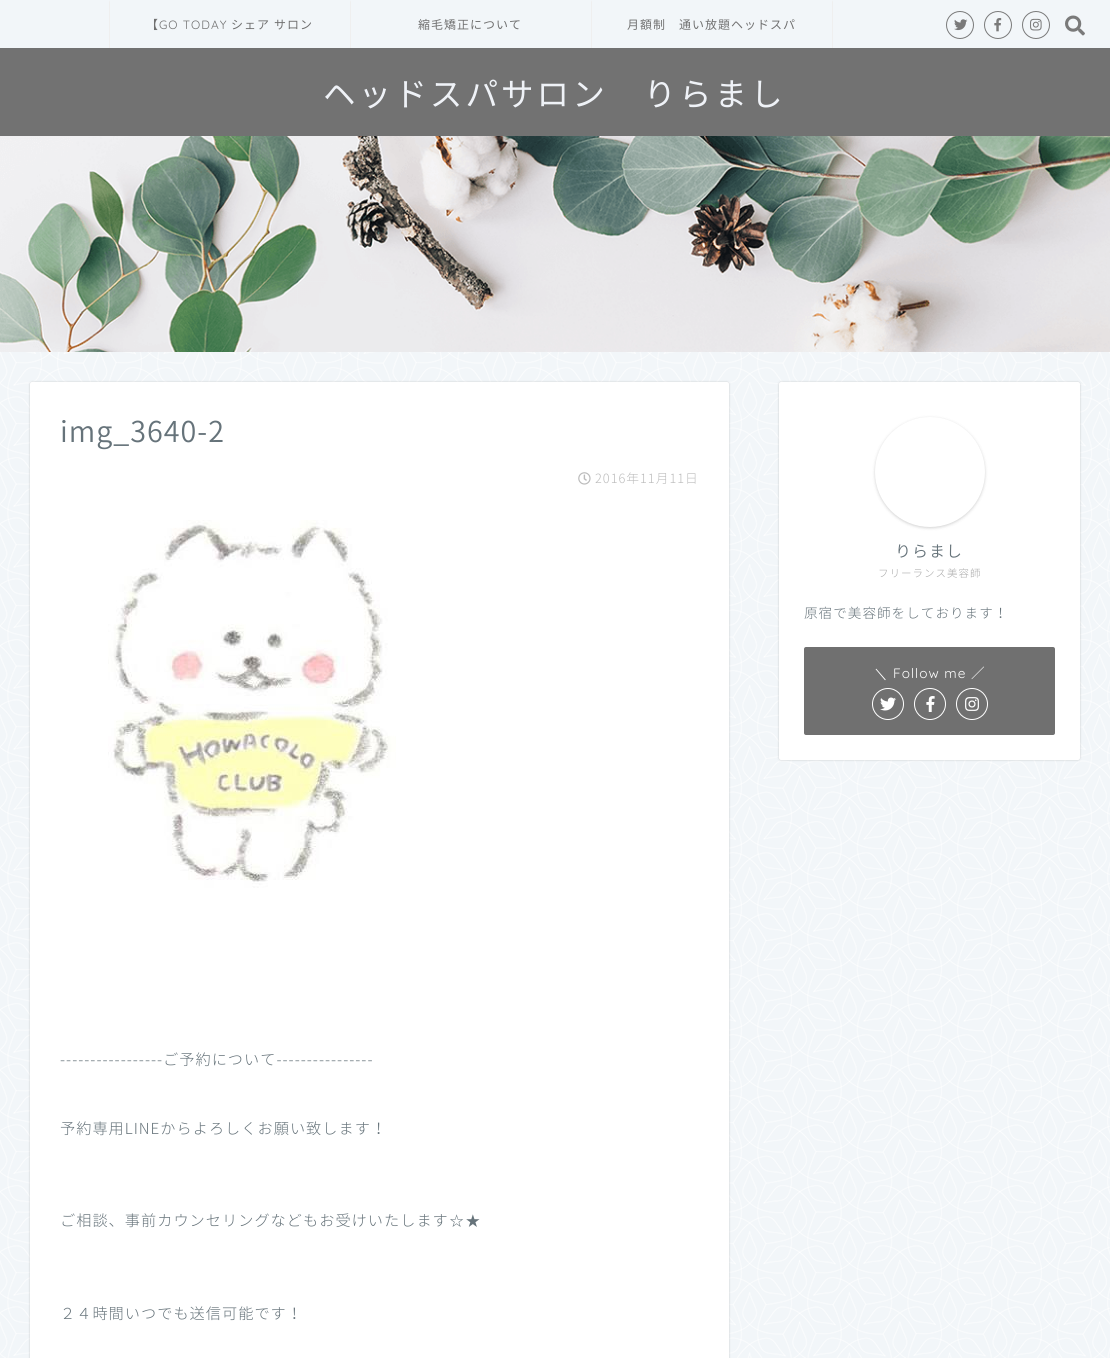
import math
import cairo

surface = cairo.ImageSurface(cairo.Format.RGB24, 1110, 1358)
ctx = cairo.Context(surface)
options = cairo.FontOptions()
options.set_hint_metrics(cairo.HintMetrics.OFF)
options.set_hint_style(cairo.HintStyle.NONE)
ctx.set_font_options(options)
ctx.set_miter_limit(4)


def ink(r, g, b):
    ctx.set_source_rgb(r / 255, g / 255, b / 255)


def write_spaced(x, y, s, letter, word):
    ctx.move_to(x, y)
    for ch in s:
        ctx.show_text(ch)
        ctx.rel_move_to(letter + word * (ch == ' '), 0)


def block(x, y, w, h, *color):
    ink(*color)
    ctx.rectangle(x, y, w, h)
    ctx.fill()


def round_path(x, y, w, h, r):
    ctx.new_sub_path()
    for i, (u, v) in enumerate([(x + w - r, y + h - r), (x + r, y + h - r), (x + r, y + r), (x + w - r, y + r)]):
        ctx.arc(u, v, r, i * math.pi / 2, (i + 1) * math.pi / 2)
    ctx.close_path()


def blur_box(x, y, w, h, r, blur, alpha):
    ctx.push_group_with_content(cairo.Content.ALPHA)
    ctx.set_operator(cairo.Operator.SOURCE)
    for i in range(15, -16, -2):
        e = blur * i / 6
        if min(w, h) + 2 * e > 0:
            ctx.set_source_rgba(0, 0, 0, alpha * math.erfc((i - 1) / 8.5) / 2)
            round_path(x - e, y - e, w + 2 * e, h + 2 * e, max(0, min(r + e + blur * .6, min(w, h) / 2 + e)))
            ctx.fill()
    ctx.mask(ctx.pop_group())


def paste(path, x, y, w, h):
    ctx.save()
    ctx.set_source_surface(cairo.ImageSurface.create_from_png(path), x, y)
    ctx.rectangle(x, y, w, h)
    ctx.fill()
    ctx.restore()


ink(242, 246, 249)
ctx.paint()
paste("pic1.png", 0, 352, 1110, 1006)
ink(239, 239, 239)
ctx.new_path()
ctx.move_to(109, 48)
ctx.line_to(109, 0)
ctx.line_to(110, 2)
ctx.line_to(110, 48)
ctx.close_path()
ctx.fill()
ctx.select_font_face("Noto Sans JP")
ctx.set_font_size(12)
ink(112, 112, 112)
write_spaced(146, 29, "【", 1, 0)
ctx.select_font_face("Quicksand Light")
write_spaced(159, 29, "GO TODAY", 1, 0)
ctx.select_font_face("Noto Sans JP")
write_spaced(231, 29, "シェア", 1, 0)
write_spaced(274, 29, "サロン", 1, 0)
ink(239, 239, 239)
ctx.new_path()
ctx.move_to(350, 48)
ctx.line_to(350, 0)
ctx.line_to(351, 2)
ctx.line_to(351, 48)
ctx.close_path()
ctx.fill()
ink(112, 112, 112)
write_spaced(418, 29, "縮毛矯正について", 1, 0)
ink(239, 239, 239)
ctx.new_path()
ctx.move_to(833, 0)
ctx.line_to(833, 48)
ctx.line_to(832, 48)
ctx.line_to(832, 2)
ctx.close_path()
ctx.fill()
ctx.new_path()
ctx.move_to(591, 48)
ctx.line_to(591, 0)
ctx.line_to(592, 2)
ctx.line_to(592, 48)
ctx.close_path()
ctx.fill()
ink(112, 112, 112)
write_spaced(627, 29, "月額制　通い放題ヘッドスパ", 1, 0)
ctx.new_path()
ctx.arc(960, 25, 13.5, 0, 2 * math.pi)
ink(122, 122, 122)
ctx.set_line_width(1)
ctx.stroke()
paste("pic2.png", 954, 19, 14, 12)
ctx.arc(998, 25, 13.5, 0, 2 * math.pi)
ctx.stroke()
paste("pic3.png", 994, 18, 8, 14)
ctx.arc(1036, 25, 13.5, 0, 2 * math.pi)
ctx.stroke()
paste("pic4.png", 1030, 18, 12, 13)
paste("pic5.png", 1065, 15, 20, 21)
block(0, 48, 1110, 88, 114, 114, 114)
ctx.set_font_size(32.6)
ink(239, 242, 247)
write_spaced(323, 106, "ヘッドスパサロン　りらまし", 3, 0)
paste("pic6.png", 0, 136, 1110, 216)
ink(0, 0, 0)
blur_box(30, 382, 699, 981, 2, 1, 0.18)
ink(255, 255, 255)
round_path(30, 382, 699, 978, 2)
ctx.fill()
ctx.select_font_face("Noto Sans JP Light")
ctx.set_font_size(28.75)
ink(102, 115, 122)
write_spaced(60, 442, "img_3640-2", 1, 0)
paste("pic7.png", 578, 472, 13, 13)
ctx.select_font_face("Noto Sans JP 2 Light")
ctx.set_font_size(12.75)
ink(187, 187, 187)
write_spaced(595, 483, "2016年11月11日", 1, 0)
paste("pic8.png", 108, 520, 288, 368)
ctx.set_font_size(15.2)
ink(102, 115, 122)
write_spaced(60, 1065, "-----------------ご予約について----------------", 1, 0)
write_spaced(60, 1134, "予約専用LINEからよろしくお願い致します！", 1, 0)
write_spaced(60, 1226, "ご相談、事前カウンセリングなどもお受けいたします", 1, 0)
ctx.select_font_face("WenQuanYi Zen Hei Medium")
write_spaced(449, 1226, "☆★", 1, 0)
ctx.select_font_face("Noto Sans JP 2 Light")
write_spaced(60, 1319, "２４時間いつでも送信可能です！", 1, 0)
ink(0, 0, 0)
blur_box(779, 382, 301, 378, 2, 1, 0.18)
ink(255, 255, 255)
round_path(779, 382, 301, 378, 2)
ctx.fill()
ink(0, 0, 0)
blur_box(875, 418, 110, 110, 55, 1.5, 0.18)
ink(255, 255, 255)
ctx.arc(930, 472, 55, 0, 2 * math.pi)
ctx.fill()
ctx.select_font_face("Noto Sans JP Light")
ctx.set_font_size(16)
ink(102, 115, 122)
write_spaced(895, 557, "りらまし", 1, 0)
ctx.select_font_face("Noto Sans JP 2 Light")
ctx.set_font_size(10.5)
ink(166, 166, 166)
write_spaced(878, 577, "フリーランス美容師", 1, 0)
ctx.set_font_size(13.6)
ink(102, 115, 122)
write_spaced(804, 618, "原宿で美容師をしております！", 1, 0)
ink(112, 112, 112)
round_path(804, 647, 251, 88, 2)
ctx.fill()
ctx.select_font_face("WenQuanYi Zen Hei Medium")
ink(255, 255, 255)
write_spaced(874, 678, "＼", 1, 0)
ctx.select_font_face("Quicksand Light")
write_spaced(893, 678, "Follow me", 1, 0)
ctx.select_font_face("Noto Sans JP")
write_spaced(971, 678, "／", 1, 0)
ctx.new_path()
ctx.arc(888, 704, 15.5, 0, 2 * math.pi)
ctx.stroke()
paste("pic9.png", 880, 697, 16, 14)
ctx.arc(930, 704, 15.5, 0, 2 * math.pi)
ctx.stroke()
paste("pic10.png", 926, 696, 9, 16)
ctx.arc(972, 704, 15.5, 0, 2 * math.pi)
ctx.stroke()
paste("pic11.png", 965, 697, 14, 14)
surface.write_to_png("screenshot.png")
